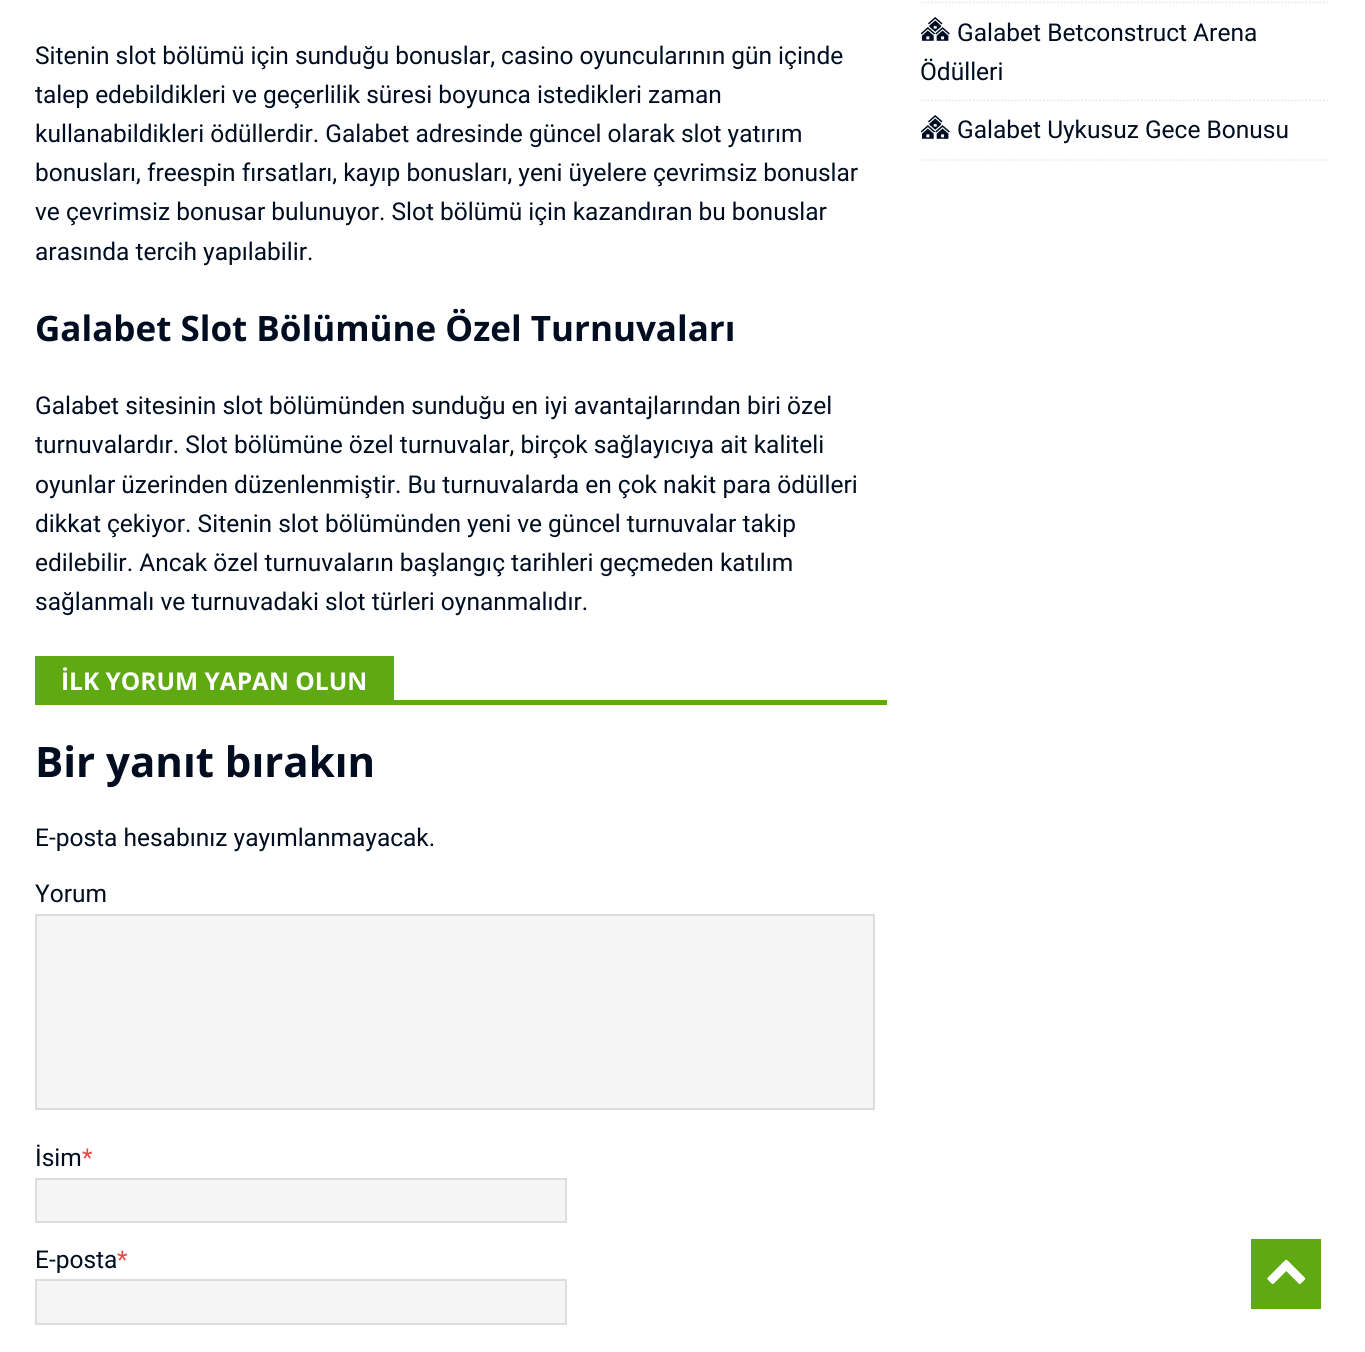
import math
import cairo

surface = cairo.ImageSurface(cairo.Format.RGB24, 1365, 1352)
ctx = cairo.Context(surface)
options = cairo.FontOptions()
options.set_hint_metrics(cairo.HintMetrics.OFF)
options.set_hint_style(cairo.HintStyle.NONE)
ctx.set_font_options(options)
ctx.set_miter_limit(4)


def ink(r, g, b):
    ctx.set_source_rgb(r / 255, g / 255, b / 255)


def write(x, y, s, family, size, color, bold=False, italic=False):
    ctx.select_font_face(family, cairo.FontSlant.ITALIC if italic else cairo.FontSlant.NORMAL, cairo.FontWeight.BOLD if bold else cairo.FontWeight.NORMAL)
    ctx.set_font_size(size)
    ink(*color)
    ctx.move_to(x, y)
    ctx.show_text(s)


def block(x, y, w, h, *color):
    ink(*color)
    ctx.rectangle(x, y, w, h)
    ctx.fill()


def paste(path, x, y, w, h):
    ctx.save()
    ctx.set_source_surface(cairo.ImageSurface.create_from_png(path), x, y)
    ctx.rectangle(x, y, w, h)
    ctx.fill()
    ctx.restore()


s1 = dict(family="Roboto", size=24.5, color=(0, 13, 33))
s2 = dict(family="Open Sans", size=35, color=(0, 13, 33), bold=True)
s3 = dict(family="Open Sans", size=24.5, color=(255, 255, 255), bold=True)
s4 = dict(family="Open Sans", size=42, color=(0, 13, 33), bold=True)
s5 = dict(family="Roboto", size=24.5, color=(230, 73, 70))

ink(255, 255, 255)
ctx.paint()
write(35, 64, "Sitenin slot bölümü için sunduğu bonuslar, casino oyuncularının gün içinde", **s1)
write(35, 103, "talep edebildikleri ve geçerlilik süresi boyunca istedikleri zaman", **s1)
write(35, 142, "kullanabildikleri ödüllerdir. Galabet adresinde güncel olarak slot yatırım", **s1)
write(35, 181, "bonusları, freespin fırsatları, kayıp bonusları, yeni üyelere çevrimsiz bonuslar", **s1)
write(35, 220, "ve çevrimsiz bonusar bulunuyor. Slot bölümü için kazandıran bu bonuslar", **s1)
write(35, 260, "arasında tercih yapılabilir.", **s1)
write(35, 341, "Galabet Slot Bölümüne Özel Turnuvaları", **s2)
write(35, 414, "Galabet sitesinin slot bölümünden sunduğu en iyi avantajlarından biri özel", **s1)
write(35, 453, "turnuvalardır. Slot bölümüne özel turnuvalar, birçok sağlayıcıya ait kaliteli", **s1)
write(35, 493, "oyunlar üzerinden düzenlenmiştir. Bu turnuvalarda en çok nakit para ödülleri", **s1)
write(35, 532, "dikkat çekiyor. Sitenin slot bölümünden yeni ve güncel turnuvalar takip", **s1)
write(35, 571, "edilebilir. Ancak özel turnuvaların başlangıç tarihleri geçmeden katılım", **s1)
write(35, 610, "sağlanmalı ve turnuvadaki slot türleri oynanmalıdır.", **s1)
block(35, 700, 852, 5, 95, 169, 19)
block(35, 656, 359, 44, 95, 169, 19)
write(61, 690, "İLK YORUM YAPAN OLUN", **s3)
write(35, 777, "Bir yanıt bırakın", **s4)
write(35, 846, "E-posta hesabınız yayımlanmayacak.", **s1)
write(35, 902, "Yorum", **s1)
ink(245, 245, 245)
ctx.rectangle(36, 915, 838, 194)
ctx.fill_preserve()
ink(221, 221, 221)
ctx.stroke()
write(35, 1166, "İsim", **s1)
write(82, 1166, "*", **s5)
ink(245, 245, 245)
ctx.rectangle(36, 1179, 530, 43)
ctx.fill_preserve()
ink(221, 221, 221)
ctx.stroke()
write(35, 1268, "E-posta", **s1)
write(117, 1268, "*", **s5)
ink(245, 245, 245)
ctx.rectangle(36, 1280, 530, 44)
ctx.fill_preserve()
ink(221, 221, 221)
ctx.stroke()
ctx.save()
ctx.rectangle(921, 0, 409, 161)
ctx.clip()
ctx.new_path()
ctx.move_to(920.5, 2.5)
ctx.line_to(1330, 2.5)
ink(235, 235, 235)
ctx.set_line_width(1.8)
ctx.set_dash([1.75, 1.75])
ctx.stroke()
ctx.new_path()
ctx.move_to(920.5, 100.5)
ctx.line_to(1330, 100.5)
ctx.stroke()
ctx.restore()
paste("pic1.png", 921, 17, 29, 24)
write(957, 41, "Galabet Betconstruct Arena", **s1)
write(920, 80, "Ödülleri", **s1)
ctx.new_path()
ctx.move_to(920.5, 160)
ctx.line_to(1330, 160)
ink(235, 235, 235)
ctx.set_line_width(1.8)
ctx.set_dash([1.75, 1.75])
ctx.stroke()
paste("pic1.png", 921, 115, 29, 24)
write(957, 138, "Galabet Uykusuz Gece Bonusu", **s1)
block(1251, 1239, 70, 70, 95, 169, 19)
paste("pic2.png", 1267, 1259, 39, 25)
surface.write_to_png("screenshot.png")
